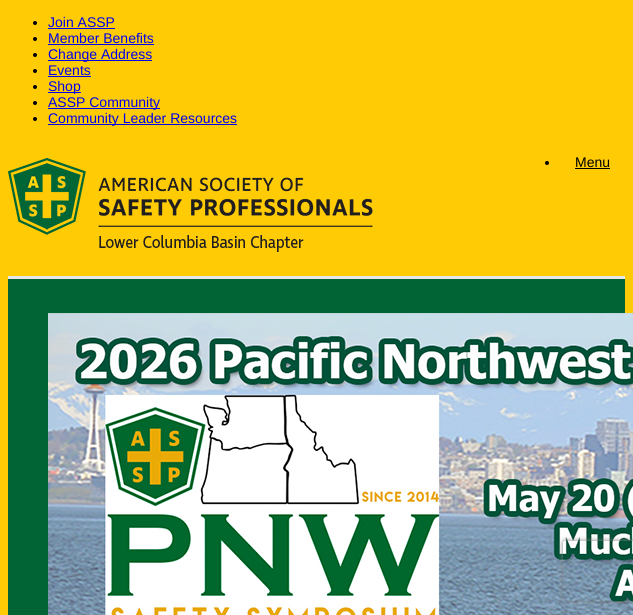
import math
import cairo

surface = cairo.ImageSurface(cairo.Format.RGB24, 633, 615)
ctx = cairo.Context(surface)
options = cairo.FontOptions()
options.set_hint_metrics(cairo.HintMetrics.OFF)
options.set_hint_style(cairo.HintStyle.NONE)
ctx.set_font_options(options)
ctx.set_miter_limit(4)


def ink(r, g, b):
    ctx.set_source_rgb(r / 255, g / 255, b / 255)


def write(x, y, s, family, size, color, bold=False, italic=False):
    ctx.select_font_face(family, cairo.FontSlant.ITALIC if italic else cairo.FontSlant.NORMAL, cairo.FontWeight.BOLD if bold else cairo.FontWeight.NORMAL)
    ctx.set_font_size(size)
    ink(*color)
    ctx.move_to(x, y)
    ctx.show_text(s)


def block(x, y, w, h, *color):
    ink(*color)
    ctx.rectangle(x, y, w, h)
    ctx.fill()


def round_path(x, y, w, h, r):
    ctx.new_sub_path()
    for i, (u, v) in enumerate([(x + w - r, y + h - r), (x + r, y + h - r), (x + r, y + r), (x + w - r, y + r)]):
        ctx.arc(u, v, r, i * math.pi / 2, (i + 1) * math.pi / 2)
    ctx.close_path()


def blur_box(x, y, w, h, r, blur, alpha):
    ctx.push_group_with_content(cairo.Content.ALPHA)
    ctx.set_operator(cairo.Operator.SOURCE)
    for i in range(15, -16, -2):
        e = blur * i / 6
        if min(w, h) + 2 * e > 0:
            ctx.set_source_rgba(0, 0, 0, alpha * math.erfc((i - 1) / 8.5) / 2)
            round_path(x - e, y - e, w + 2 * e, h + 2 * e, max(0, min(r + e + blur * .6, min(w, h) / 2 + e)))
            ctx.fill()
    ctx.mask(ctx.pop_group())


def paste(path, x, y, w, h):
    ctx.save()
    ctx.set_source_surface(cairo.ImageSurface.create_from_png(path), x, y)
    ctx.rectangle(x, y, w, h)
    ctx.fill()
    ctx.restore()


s1 = dict(family="Liberation Sans", size=14, color=(0, 0, 238))
s2 = dict(family="Liberation Sans", size=14, color=(0, 0, 0))

ink(255, 203, 5)
ctx.paint()
ink(0, 0, 0)
ctx.arc(35, 23, 2, 0, 2 * math.pi)
ctx.fill()
write(48, 27, "Join ASSP", **s1)
block(48, 28, 67, 1, 0, 0, 238)
ink(0, 0, 0)
ctx.new_path()
ctx.arc(35, 39, 2, 0, 2 * math.pi)
ctx.fill()
write(48, 43, "Member Benefits", **s1)
block(48, 44, 106, 1, 0, 0, 238)
ink(0, 0, 0)
ctx.new_path()
ctx.arc(35, 55, 2, 0, 2 * math.pi)
ctx.fill()
block(48, 60, 104, 1, 0, 0, 238)
write(48, 59, "Change Address", **s1)
ink(0, 0, 0)
ctx.new_path()
ctx.arc(35, 71, 2, 0, 2 * math.pi)
ctx.fill()
write(48, 75, "Events", **s1)
block(48, 76, 43, 1, 0, 0, 238)
ink(0, 0, 0)
ctx.new_path()
ctx.arc(35, 87, 2, 0, 2 * math.pi)
ctx.fill()
block(48, 92, 33, 1, 0, 0, 238)
write(48, 91, "Shop", **s1)
ink(0, 0, 0)
ctx.new_path()
ctx.arc(35, 103, 2, 0, 2 * math.pi)
ctx.fill()
block(48, 108, 112, 1, 0, 0, 238)
write(48, 107, "ASSP Community", **s1)
ink(0, 0, 0)
ctx.new_path()
ctx.arc(35, 119, 2, 0, 2 * math.pi)
ctx.fill()
block(48, 124, 189, 1, 0, 0, 238)
write(48, 123, "Community Leader Resources", **s1)
block(8, 276, 617, 3, 232, 232, 232)
paste("pic1.png", 8, 158, 365, 94)
ink(0, 0, 0)
ctx.arc(547, 163, 2, 0, 2 * math.pi)
ctx.fill()
write(575, 167, "Menu", **s2)
block(575, 168, 35, 1, 0, 0, 0)
block(8, 279, 617, 336, 0, 100, 53)
paste("pic2.png", 48, 313, 585, 302)
ctx.save()
ctx.set_fill_rule(cairo.FillRule.EVEN_ODD)
ctx.new_path()
ctx.move_to(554, 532)
ctx.line_to(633, 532)
ctx.line_to(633, 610)
ctx.line_to(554, 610)
ctx.close_path()
ctx.move_to(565, 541)
ctx.line_to(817, 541)
ctx.curve_to(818, 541, 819, 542, 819, 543)
ctx.line_to(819, 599)
ctx.curve_to(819, 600, 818, 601, 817, 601)
ctx.line_to(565, 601)
ctx.curve_to(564, 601, 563, 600, 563, 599)
ctx.line_to(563, 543)
ctx.curve_to(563, 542, 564, 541, 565, 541)
ctx.close_path()
ctx.clip()
ink(128, 128, 128)
blur_box(563, 541, 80, 60, 2, 2.5, 1)
ctx.restore()
surface.write_to_png("screenshot.png")
